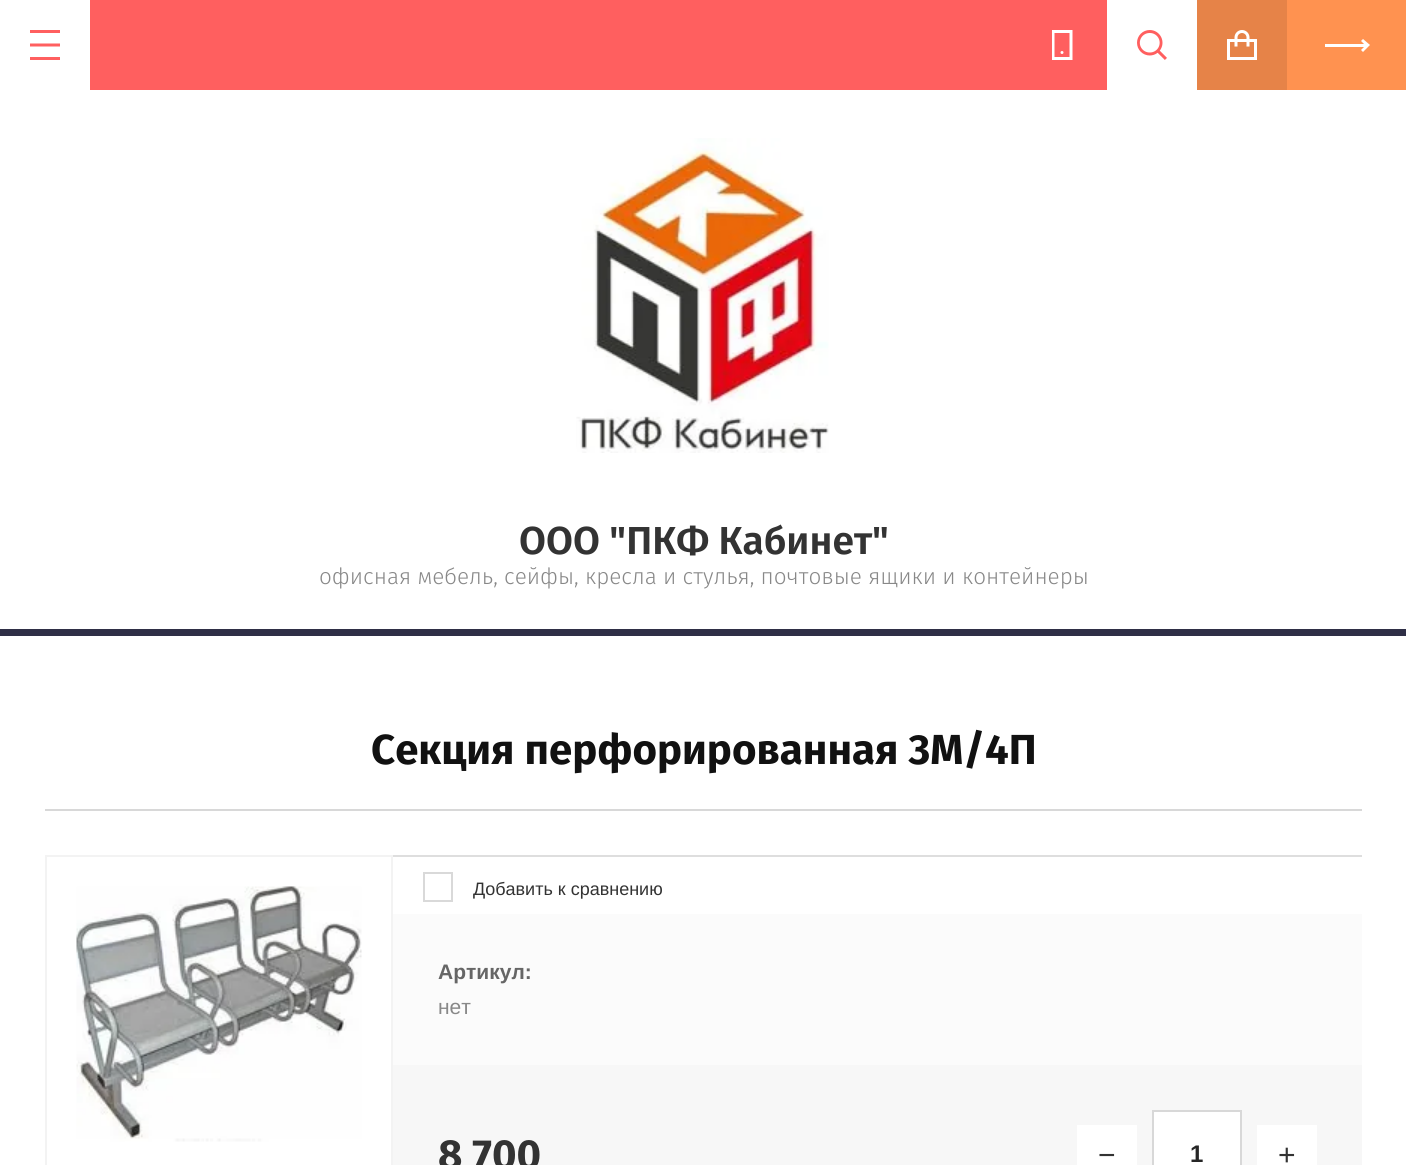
import math
import cairo

surface = cairo.ImageSurface(cairo.Format.RGB24, 1406, 1165)
ctx = cairo.Context(surface)
options = cairo.FontOptions()
options.set_hint_metrics(cairo.HintMetrics.OFF)
options.set_hint_style(cairo.HintStyle.NONE)
ctx.set_font_options(options)
ctx.set_miter_limit(4)


def ink(r, g, b):
    ctx.set_source_rgb(r / 255, g / 255, b / 255)


def write(x, y, s, family, size, color, bold=False, italic=False):
    ctx.select_font_face(family, cairo.FontSlant.ITALIC if italic else cairo.FontSlant.NORMAL, cairo.FontWeight.BOLD if bold else cairo.FontWeight.NORMAL)
    ctx.set_font_size(size)
    ink(*color)
    ctx.move_to(x, y)
    ctx.show_text(s)


def block(x, y, w, h, *color):
    ink(*color)
    ctx.rectangle(x, y, w, h)
    ctx.fill()


def paste(path, x, y, w, h):
    ctx.save()
    ctx.set_source_surface(cairo.ImageSurface.create_from_png(path), x, y)
    ctx.rectangle(x, y, w, h)
    ctx.fill()
    ctx.restore()


s1 = dict(family="Fira Sans SemiBold", size=39, color=(51, 51, 51))
s2 = dict(family="Fira Sans Light", size=22.5, color=(136, 136, 136))
s3 = dict(family="Fira Sans", size=42, color=(17, 17, 17), bold=True)
s4 = dict(family="Liberation Sans", size=18, color=(51, 51, 51))
s5 = dict(family="Liberation Sans", size=21, color=(102, 102, 102), bold=True)
s6 = dict(family="Liberation Sans", size=21, color=(136, 136, 136))
s7 = dict(family="Fira Sans", size=42, color=(51, 51, 51), bold=True)
s8 = dict(family="Liberation Sans", size=30, color=(51, 51, 51))
s9 = dict(family="Liberation Sans", size=24, color=(38, 38, 38), bold=True)

ink(255, 255, 255)
ctx.paint()
block(0, 629, 1406, 7, 47, 47, 70)
block(90, 0, 1017, 90, 255, 95, 95)
paste("pic1.png", 30, 30, 30, 30)
paste("pic2.png", 1052, 30, 21, 30)
paste("pic3.png", 1137, 30, 30, 30)
block(1287, 0, 119, 90, 255, 146, 80)
block(1197, 0, 90, 90, 230, 131, 72)
paste("pic4.png", 1227, 30, 30, 30)
ctx.save()
ctx.rectangle(1325, 39, 45, 14)
ctx.clip()
ink(255, 255, 255)
ctx.new_path()
ctx.move_to(1324, 44)
ctx.line_to(1364, 44)
ctx.line_to(1361, 41)
ctx.line_to(1363, 39)
ctx.line_to(1370, 45)
ctx.line_to(1363, 52)
ctx.line_to(1361, 50)
ctx.line_to(1364, 47)
ctx.line_to(1324, 47)
ctx.close_path()
ctx.fill()
ctx.restore()
paste("pic5.png", 576, 138, 253, 315)
write(519, 554, "ООО \"ПКФ Кабинет\"", **s1)
write(319, 584, "офисная мебель, сейфы, кресла и стулья, почтовые ящики и контейнеры", **s2)
block(45, 809, 1317, 2, 216, 216, 216)
write(371, 764, "Секция перфорированная 3М/4П", **s3)
ctx.rectangle(46, 856, 346, 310)
ink(243, 243, 243)
ctx.stroke()
paste("pic6.png", 76, 886, 286, 256)
block(393, 855, 969, 2, 222, 222, 222)
ctx.rectangle(424, 873, 28, 28)
ink(217, 217, 217)
ctx.stroke()
write(473, 895, "Добавить к сравнению", **s4)
block(393, 914, 969, 151, 251, 251, 251)
write(438, 979, "Артикул:", **s5)
write(438, 1014, "нет", **s6)
block(393, 1065, 969, 100, 247, 247, 247)
write(438, 1169, "8 700", **s7)
block(1077, 1125, 60, 40, 255, 255, 255)
write(1098, 1165, "−", **s8)
ink(255, 255, 255)
ctx.rectangle(1153, 1111, 88, 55)
ctx.fill_preserve()
ink(216, 216, 216)
ctx.stroke()
write(1190, 1162, "1", **s9)
block(1257, 1125, 60, 40, 255, 255, 255)
write(1278, 1165, "+", **s8)
surface.write_to_png("screenshot.png")
